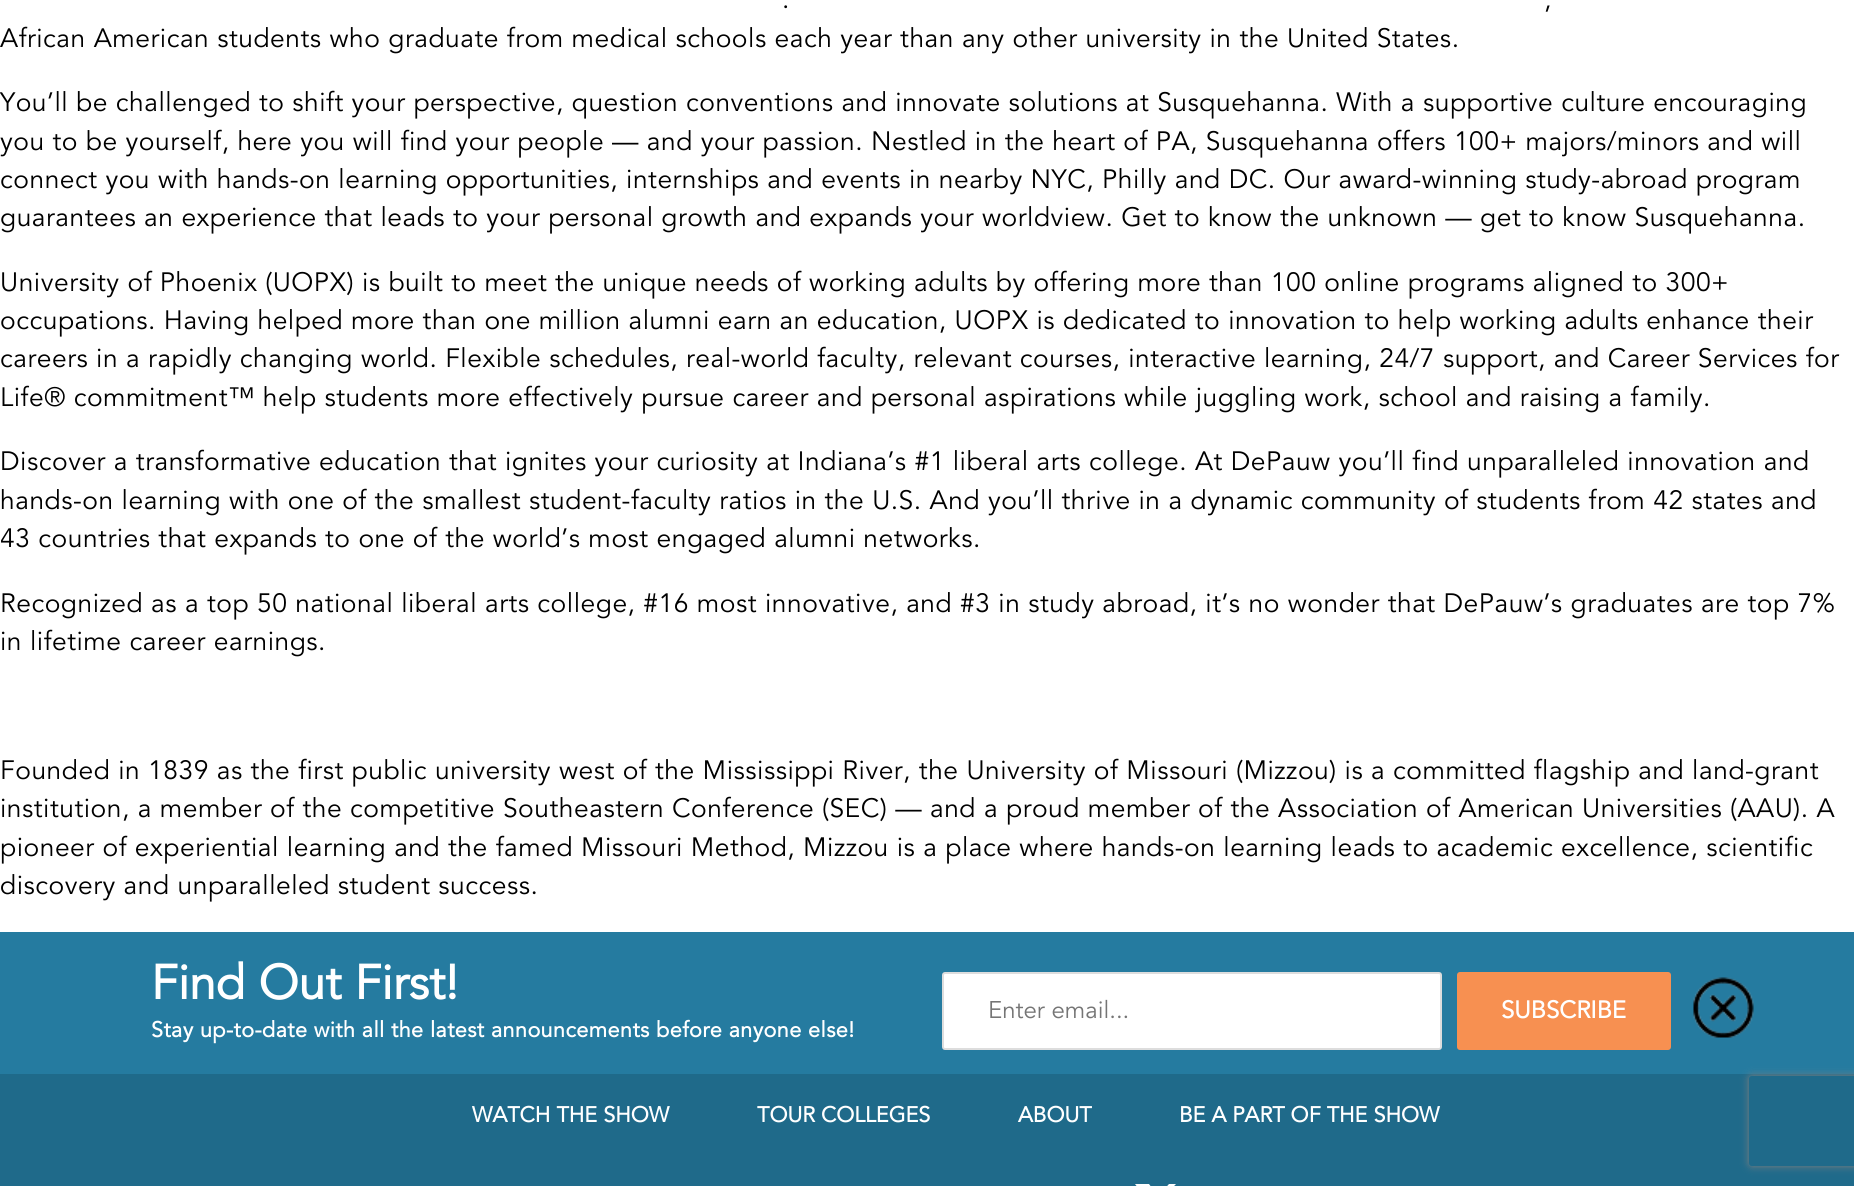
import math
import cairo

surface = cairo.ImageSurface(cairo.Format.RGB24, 1854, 1186)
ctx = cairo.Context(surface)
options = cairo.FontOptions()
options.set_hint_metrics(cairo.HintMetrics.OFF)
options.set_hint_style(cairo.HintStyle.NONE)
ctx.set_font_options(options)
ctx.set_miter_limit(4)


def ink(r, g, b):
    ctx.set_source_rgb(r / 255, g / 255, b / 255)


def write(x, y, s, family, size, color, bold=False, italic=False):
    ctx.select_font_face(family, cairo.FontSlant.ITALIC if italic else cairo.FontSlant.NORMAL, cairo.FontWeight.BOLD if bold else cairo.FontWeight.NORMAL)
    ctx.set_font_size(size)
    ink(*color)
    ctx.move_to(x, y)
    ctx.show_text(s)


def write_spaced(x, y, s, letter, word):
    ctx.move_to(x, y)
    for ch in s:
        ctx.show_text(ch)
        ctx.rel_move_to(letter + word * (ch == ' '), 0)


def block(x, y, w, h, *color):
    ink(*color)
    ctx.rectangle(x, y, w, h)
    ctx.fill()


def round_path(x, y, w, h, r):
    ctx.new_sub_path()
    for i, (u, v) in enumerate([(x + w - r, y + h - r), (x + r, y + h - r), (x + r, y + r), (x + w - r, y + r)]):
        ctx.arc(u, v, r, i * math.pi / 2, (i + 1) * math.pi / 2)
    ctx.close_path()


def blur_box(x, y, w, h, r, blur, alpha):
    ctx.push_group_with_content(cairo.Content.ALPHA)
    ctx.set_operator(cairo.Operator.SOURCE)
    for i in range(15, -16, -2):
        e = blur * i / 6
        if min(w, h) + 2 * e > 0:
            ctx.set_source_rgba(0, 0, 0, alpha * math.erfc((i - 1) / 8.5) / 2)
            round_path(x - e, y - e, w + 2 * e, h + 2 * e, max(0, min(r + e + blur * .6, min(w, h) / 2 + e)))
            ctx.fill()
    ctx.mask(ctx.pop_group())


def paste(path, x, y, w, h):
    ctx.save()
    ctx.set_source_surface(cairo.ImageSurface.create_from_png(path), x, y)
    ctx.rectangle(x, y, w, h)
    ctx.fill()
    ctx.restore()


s1 = dict(family="Avenir", size=48, color=(255, 255, 255), bold=True)
s2 = dict(family="Avenir", size=24, color=(117, 117, 117))
s3 = dict(family="Avenir", size=24, color=(255, 255, 255), bold=True)
s4 = dict(family="Avenir", size=21.6, color=(255, 255, 255), bold=True)

ink(255, 255, 255)
ctx.paint()
ctx.select_font_face("Avenir")
ctx.set_font_size(26.4)
ink(0, 0, 0)
write_spaced(782, 8, ".", 0.53, 0)
write_spaced(1544, 8, ",", 0.53, 0)
write_spaced(0, 47, "African American students who graduate from medical schools each year than any other university in the United States.", 0.53, 0)
write_spaced(0, 111, "You’ll be challenged to shift your perspective, question conventions and innovate solutions at Susquehanna. With a supportive culture encouraging", 0.53, 0)
write_spaced(0, 150, "you to be yourself, here you will find your people — and your passion. Nestled in the heart of PA, Susquehanna offers 100+ majors/minors and will", 0.53, 0)
write_spaced(0, 188, "connect you with hands-on learning opportunities, internships and events in nearby NYC, Philly and DC. Our award-winning study-abroad program", 0.53, 0)
write_spaced(0, 226, "guarantees an experience that leads to your personal growth and expands your worldview. Get to know the unknown — get to know Susquehanna.", 0.53, 0)
write_spaced(0, 291, "University of Phoenix (UOPX) is built to meet the unique needs of working adults by offering more than 100 online programs aligned to 300+", 0.53, 0)
write_spaced(0, 329, "occupations. Having helped more than one million alumni earn an education, UOPX is dedicated to innovation to help working adults enhance their", 0.53, 0)
write_spaced(0, 367, "careers in a rapidly changing world. Flexible schedules, real-world faculty, relevant courses, interactive learning, 24/7 support, and Career Services for", 0.53, 0)
write_spaced(0, 406, "Life® commitment™ help students more effectively pursue career and personal aspirations while juggling work, school and raising a family.", 0.53, 0)
write_spaced(0, 470, "Discover a transformative education that ignites your curiosity at Indiana’s #1 liberal arts college. At DePauw you’ll find unparalleled innovation and", 0.53, 0)
write_spaced(0, 509, "hands-on learning with one of the smallest student-faculty ratios in the U.S. And you’ll thrive in a dynamic community of students from 42 states and", 0.53, 0)
write_spaced(0, 547, "43 countries that expands to one of the world’s most engaged alumni networks.", 0.53, 0)
write_spaced(0, 612, "Recognized as a top 50 national liberal arts college, #16 most innovative, and #3 in study abroad, it’s no wonder that DePauw’s graduates are top 7%", 0.53, 0)
write_spaced(0, 650, "in lifetime career earnings.", 0.53, 0)
write_spaced(0, 779, "Founded in 1839 as the first public university west of the Mississippi River, the University of Missouri (Mizzou) is a committed flagship and land-grant", 0.53, 0)
write_spaced(0, 817, "institution, a member of the competitive Southeastern Conference (SEC) — and a proud member of the Association of American Universities (AAU). A", 0.53, 0)
write_spaced(0, 856, "pioneer of experiential learning and the famed Missouri Method, Mizzou is a place where hands-on learning leads to academic excellence, scientific", 0.53, 0)
write_spaced(0, 894, "discovery and unparalleled student success.", 0.53, 0)
block(0, 932, 1854, 142, 37, 123, 160)
write(151, 999, "Find Out First!", **s1)
ctx.set_font_size(21.6)
write_spaced(151, 1037, "Stay up-to-date with all the latest announcements before anyone else!", 0.43, 0)
round_path(943, 973, 498, 76, 2)
ctx.fill_preserve()
ink(221, 221, 221)
ctx.stroke()
write(988, 1018, "Enter email...", **s2)
ink(247, 144, 81)
round_path(1457, 972, 214, 78, 3)
ctx.fill()
write(1501, 1018, "SUBSCRIBE", **s3)
paste("pic1.png", 1693, 977, 61, 61)
block(0, 1074, 1854, 112, 31, 106, 138)
write(472, 1122, "WATCH THE SHOW", **s4)
write(757, 1122, "TOUR COLLEGES", **s4)
write(1018, 1122, "ABOUT", **s4)
write(1179, 1122, "BE A PART OF THE SHOW", **s4)
ctx.new_path()
ctx.move_to(1169, 1184)
ctx.line_to(1176, 1184)
ctx.line_to(1161, 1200)
ctx.line_to(1178, 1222)
ctx.line_to(1165, 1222)
ctx.line_to(1154, 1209)
ctx.line_to(1142, 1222)
ctx.line_to(1136, 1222)
ctx.line_to(1151, 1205)
ctx.line_to(1135, 1184)
ctx.line_to(1149, 1184)
ctx.line_to(1158, 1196)
ctx.close_path()
ctx.move_to(1167, 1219)
ctx.line_to(1170, 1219)
ctx.line_to(1147, 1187)
ctx.line_to(1143, 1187)
ctx.close_path()
ctx.fill()
ctx.save()
ctx.set_fill_rule(cairo.FillRule.EVEN_ODD)
ctx.new_path()
ctx.move_to(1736, 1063)
ctx.line_to(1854, 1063)
ctx.line_to(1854, 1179)
ctx.line_to(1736, 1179)
ctx.close_path()
ctx.move_to(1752, 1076)
ctx.line_to(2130, 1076)
ctx.curve_to(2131.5, 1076, 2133, 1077.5, 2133, 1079)
ctx.line_to(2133, 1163)
ctx.curve_to(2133, 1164.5, 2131.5, 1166, 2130, 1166)
ctx.line_to(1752, 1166)
ctx.curve_to(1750.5, 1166, 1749, 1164.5, 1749, 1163)
ctx.line_to(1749, 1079)
ctx.curve_to(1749, 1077.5, 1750.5, 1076, 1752, 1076)
ctx.close_path()
ctx.clip()
ink(128, 128, 128)
blur_box(1749, 1076, 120, 90, 3, 4, 1)
ctx.restore()
surface.write_to_png("screenshot.png")
